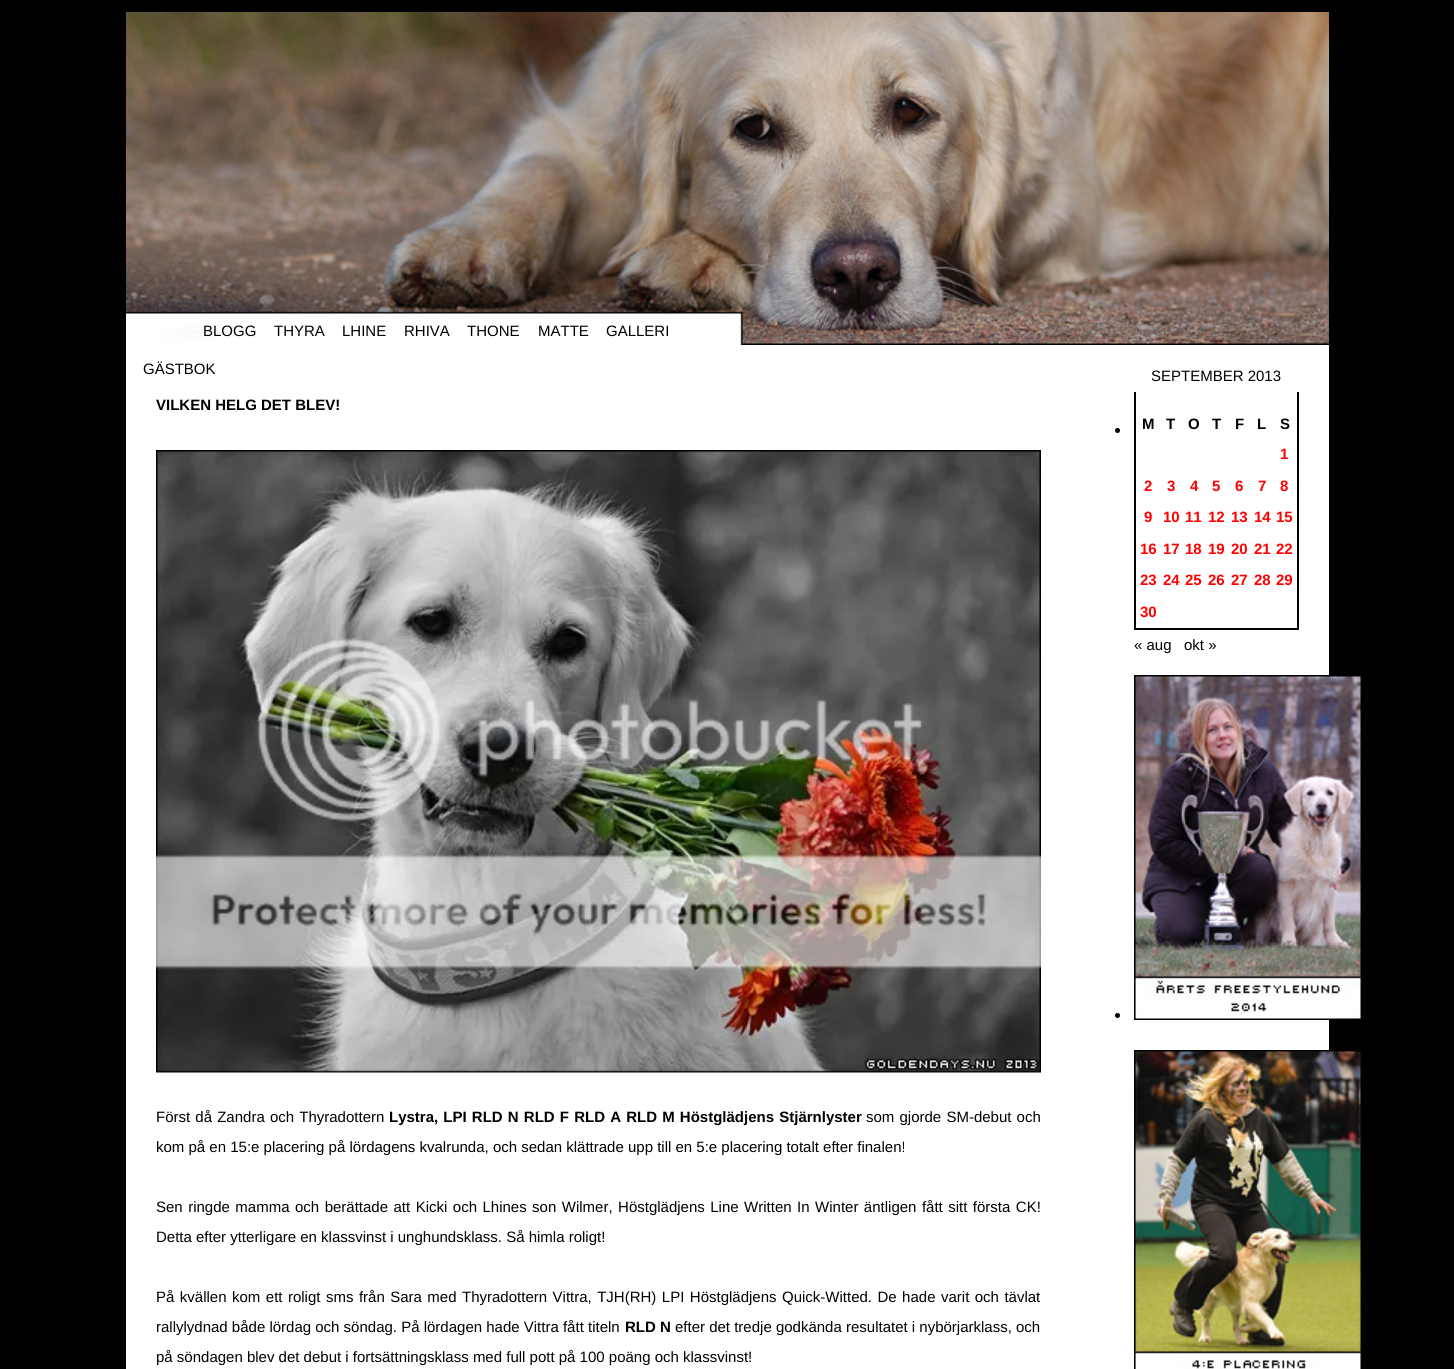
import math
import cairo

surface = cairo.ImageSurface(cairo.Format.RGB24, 1454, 1369)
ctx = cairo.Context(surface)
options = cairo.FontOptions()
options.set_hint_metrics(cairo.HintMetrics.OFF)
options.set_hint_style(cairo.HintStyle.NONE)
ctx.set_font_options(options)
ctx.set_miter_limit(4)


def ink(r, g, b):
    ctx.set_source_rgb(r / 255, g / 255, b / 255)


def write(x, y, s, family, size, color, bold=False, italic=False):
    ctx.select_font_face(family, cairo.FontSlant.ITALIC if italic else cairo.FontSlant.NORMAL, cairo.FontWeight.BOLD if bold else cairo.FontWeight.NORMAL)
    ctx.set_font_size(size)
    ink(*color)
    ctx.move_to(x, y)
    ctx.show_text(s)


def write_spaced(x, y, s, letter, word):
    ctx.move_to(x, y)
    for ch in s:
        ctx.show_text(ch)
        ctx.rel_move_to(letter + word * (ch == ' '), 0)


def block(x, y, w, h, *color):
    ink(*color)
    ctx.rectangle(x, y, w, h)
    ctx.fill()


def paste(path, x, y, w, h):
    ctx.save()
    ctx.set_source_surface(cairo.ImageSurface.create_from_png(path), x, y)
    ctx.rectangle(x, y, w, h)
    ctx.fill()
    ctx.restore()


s1 = dict(family="Liberation Sans", size=15, color=(0, 0, 0))
s2 = dict(family="Liberation Sans", size=15, color=(0, 0, 0), bold=True)
s3 = dict(family="Liberation Sans", size=15, color=(255, 0, 0), bold=True)

ink(0, 0, 0)
ctx.paint()
block(126, 345, 1203, 1024, 255, 255, 255)
paste("pic1.png", 126, 12, 1203, 333)
write(203, 336, "BLOGG", **s1)
write(274, 336, "THYRA", **s1)
write(342, 336, "LHINE", **s1)
write(404, 336, "RHIVA", **s1)
write(467, 336, "THONE", **s1)
write(538, 336, "MATTE", **s1)
write(606, 336, "GALLERI", **s1)
write(143, 374, "GÄSTBOK", **s1)
write(156, 410, "VILKEN HELG DET BLEV!", **s2)
paste("pic2.png", 156, 450, 885, 623)
ctx.select_font_face("Liberation Sans")
write_spaced(156, 1122, "Först då Zandra och Thyradottern", 0, 1)
ctx.select_font_face("Liberation Sans", cairo.FontSlant.NORMAL, cairo.FontWeight.BOLD)
write_spaced(389, 1122, "Lystra, LPI RLD N RLD F RLD A RLD M Höstglädjens Stjärnlyster", 0, 1)
ctx.select_font_face("Liberation Sans")
write_spaced(866, 1122, "som gjorde SM-debut och", 0, 1)
write(156, 1152, "kom på en 15:e placering på lördagens kvalrunda, och sedan klättrade upp till en 5:e placering totalt efter finalen!", **s1)
write_spaced(156, 1212, "Sen ringde mamma och berättade att Kicki och Lhines son Wilmer, Höstglädjens Line Written In Winter äntligen fått sitt första CK!", 0, 1.3)
write(156, 1242, "Detta efter ytterligare en klassvinst i unghundsklass. Så himla roligt!", **s1)
write_spaced(156, 1302, "På kvällen kom ett roligt sms från Sara med Thyradottern Vittra, TJH(RH) LPI Höstglädjens Quick-Witted. De hade varit och tävlat", 0, 1.3)
write(156, 1332, "rallylydnad både lördag och söndag. På lördagen hade Vittra fått titeln", **s1)
write(625, 1332, "RLD N", **s2)
write(675, 1332, "efter det tredje godkända resultatet i nybörjarklass, och", **s1)
write(156, 1362, "på söndagen blev det debut i fortsättningsklass med full pott på 100 poäng och klassvinst!", **s1)
ctx.new_path()
ctx.arc(1117.5, 430.5, 2.5, 0, 2 * math.pi)
ctx.fill()
ctx.rectangle(1135, 361, 163, 268)
ctx.stroke()
block(1134, 360, 165, 32, 255, 255, 255)
write(1151, 381, "SEPTEMBER 2013", **s1)
write(1142, 429, "M", **s2)
write(1166, 429, "T", **s2)
write(1188, 429, "O", **s2)
write(1212, 429, "T", **s2)
write(1235, 429, "F", **s2)
write(1257, 429, "L", **s2)
write(1280, 429, "S", **s2)
write(1280, 459, "1", **s3)
write(1144, 491, "2", **s3)
write(1167, 491, "3", **s3)
write(1190, 491, "4", **s3)
write(1212, 491, "5", **s3)
write(1235, 491, "6", **s3)
write(1258, 491, "7", **s3)
write(1280, 491, "8", **s3)
write(1144, 522, "9", **s3)
write(1163, 522, "10", **s3)
write(1185, 522, "11", **s3)
write(1208, 522, "12", **s3)
write(1231, 522, "13", **s3)
write(1254, 522, "14", **s3)
write(1276, 522, "15", **s3)
write(1140, 554, "16", **s3)
write(1163, 554, "17", **s3)
write(1185, 554, "18", **s3)
write(1208, 554, "19", **s3)
write(1231, 554, "20", **s3)
write(1254, 554, "21", **s3)
write(1276, 554, "22", **s3)
write(1140, 585, "23", **s3)
write(1163, 585, "24", **s3)
write(1185, 585, "25", **s3)
write(1208, 585, "26", **s3)
write(1231, 585, "27", **s3)
write(1254, 585, "28", **s3)
write(1276, 585, "29", **s3)
write(1140, 617, "30", **s3)
write(1134, 650, "« aug", **s1)
write(1184, 650, "okt »", **s1)
ctx.new_path()
ctx.arc(1117.5, 1015.5, 2.5, 0, 2 * math.pi)
ctx.fill()
paste("pic3.png", 1134, 675, 228, 345)
paste("pic4.png", 1134, 1050, 228, 319)
surface.write_to_png("screenshot.png")
